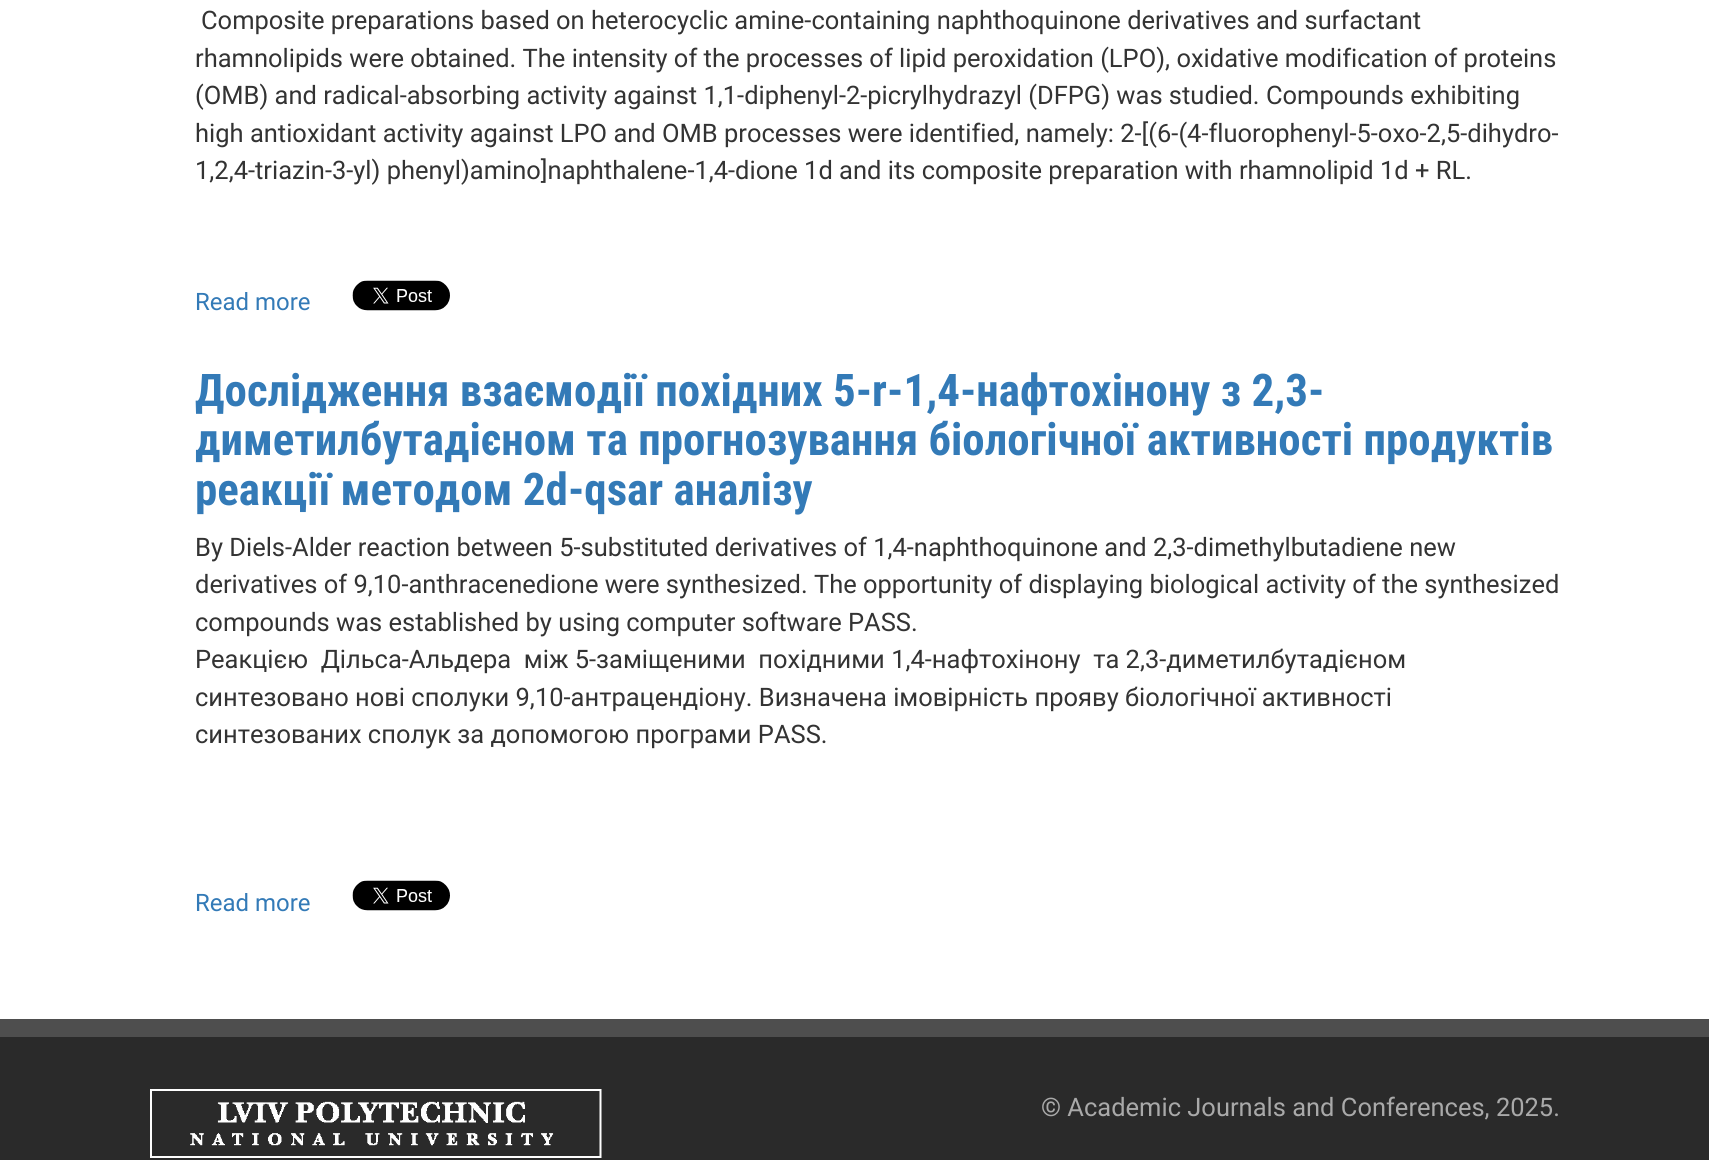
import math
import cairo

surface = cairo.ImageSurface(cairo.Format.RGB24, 1709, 1160)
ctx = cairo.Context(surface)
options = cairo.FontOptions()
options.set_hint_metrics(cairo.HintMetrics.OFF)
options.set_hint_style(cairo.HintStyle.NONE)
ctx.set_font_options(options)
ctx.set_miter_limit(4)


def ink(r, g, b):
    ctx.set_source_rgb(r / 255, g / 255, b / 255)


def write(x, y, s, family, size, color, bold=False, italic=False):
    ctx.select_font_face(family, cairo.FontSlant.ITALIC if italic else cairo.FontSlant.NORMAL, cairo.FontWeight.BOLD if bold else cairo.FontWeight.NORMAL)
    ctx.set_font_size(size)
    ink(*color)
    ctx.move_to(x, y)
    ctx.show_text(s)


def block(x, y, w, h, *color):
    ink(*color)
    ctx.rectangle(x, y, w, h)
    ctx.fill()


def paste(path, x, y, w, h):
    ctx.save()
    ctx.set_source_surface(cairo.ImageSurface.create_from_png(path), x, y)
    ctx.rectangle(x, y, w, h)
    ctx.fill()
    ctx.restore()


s1 = dict(family="Roboto", size=25.5, color=(51, 51, 51))
s2 = dict(family="Roboto", size=24, color=(51, 122, 183))
s3 = dict(family="Roboto Condensed", size=45, color=(51, 122, 183), bold=True)
s4 = dict(family="Roboto", size=25.5, color=(169, 169, 169))

ink(255, 255, 255)
ctx.paint()
write(201, 29, "Composite preparations based on heterocyclic amine-containing naphthoquinone derivatives and surfactant", **s1)
write(195, 67, "rhamnolipids were obtained. The intensity of the processes of lipid peroxidation (LPO), oxidative modification of proteins", **s1)
write(195, 104, "(OMB) and radical-absorbing activity against 1,1-diphenyl-2-picrylhydrazyl (DFPG) was studied. Compounds exhibiting", **s1)
write(195, 142, "high antioxidant activity against LPO and OMB processes were identified, namely: 2-[(6-(4-fluorophenyl-5-oxo-2,5-dihydro-", **s1)
write(195, 179, "1,2,4-triazin-3-yl) phenyl)amino]naphthalene-1,4-dione 1d and its composite preparation with rhamnolipid 1d + RL.", **s1)
write(195, 310, "Read more", **s2)
paste("pic1.png", 352, 280, 98, 31)
write(195, 406, "Дослідження взаємодії похідних 5-r-1,4-нафтохінону з 2,3-", **s3)
write(195, 455, "диметилбутадієном та прогнозування біологічної активності продуктів", **s3)
write(195, 505, "реакції методом 2d-qsar аналізу", **s3)
write(195, 556, "By Diels-Alder reaction between 5-substituted derivatives of 1,4-naphthoquinone and 2,3-dimethylbutadiene new", **s1)
write(195, 593, "derivatives of 9,10-anthracenedione were synthesized. The opportunity of displaying biological activity of the synthesized", **s1)
write(195, 631, "compounds was established by using computer software PASS.", **s1)
write(195, 668, "Реакцією  Дільса-Альдера  між 5-заміщеними  похідними 1,4-нафтохінону  та 2,3-диметилбутадієном", **s1)
write(195, 706, "синтезовано нові сполуки 9,10-антрацендіону. Визначена імовірність прояву біологічної активності", **s1)
write(195, 743, "синтезованих сполук за допомогою програми PASS.", **s1)
write(195, 911, "Read more", **s2)
paste("pic2.png", 352, 880, 98, 31)
block(0, 1037, 1709, 123, 42, 42, 42)
block(0, 1019, 1709, 18, 78, 78, 78)
paste("pic3.png", 150, 1089, 452, 69)
write(1041, 1116, "© Academic Journals and Conferences, 2025.", **s4)
surface.write_to_png("screenshot.png")
